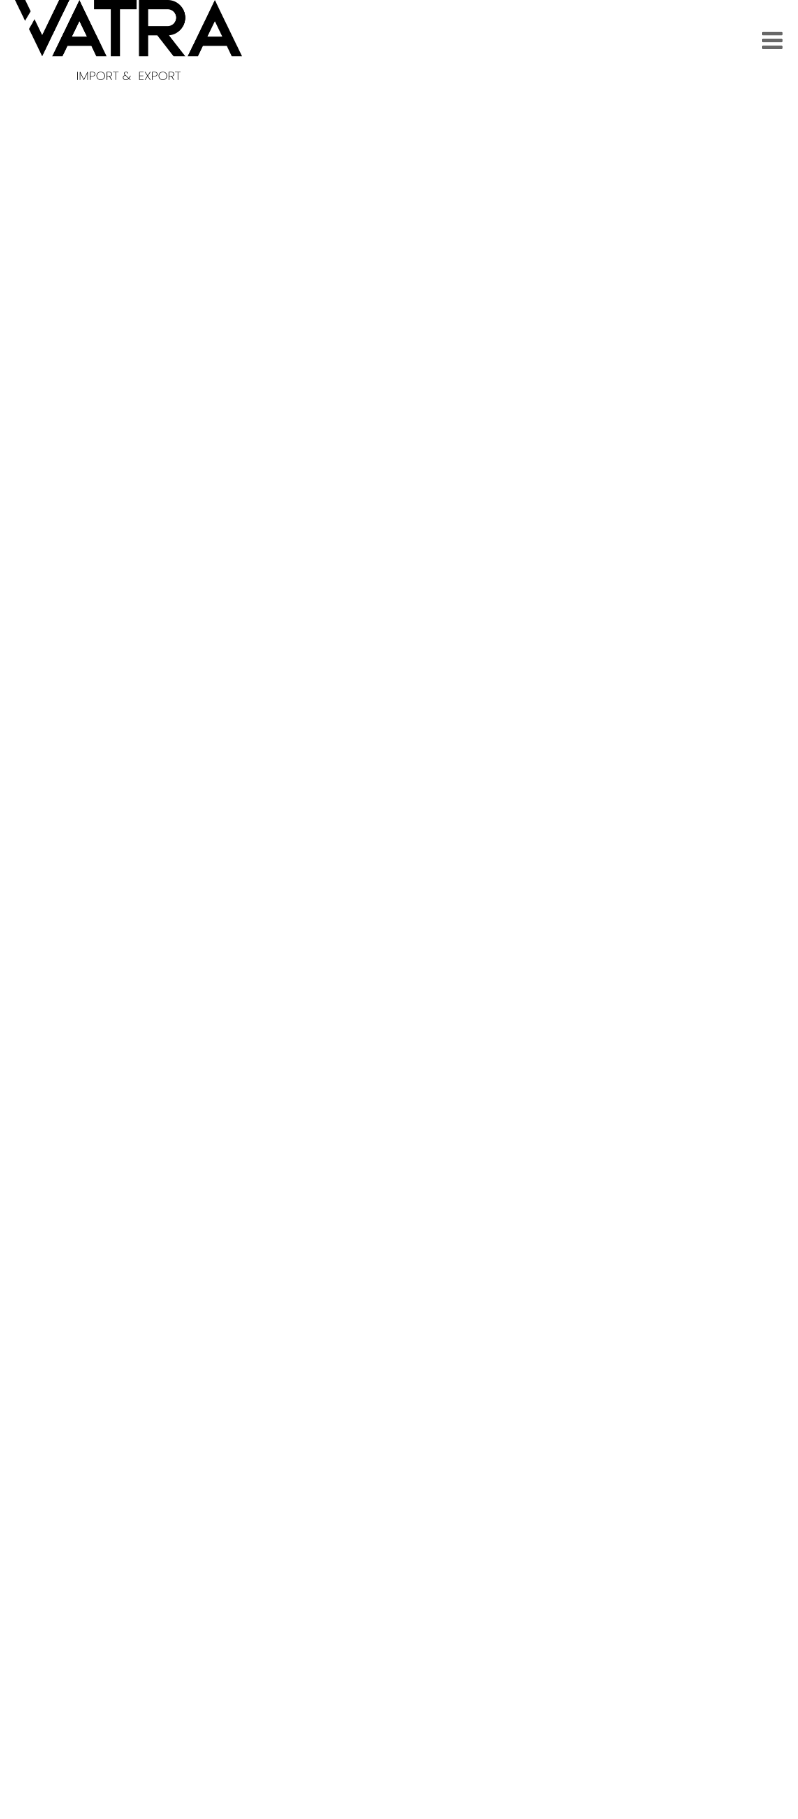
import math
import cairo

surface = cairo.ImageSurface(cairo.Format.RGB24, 798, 1819)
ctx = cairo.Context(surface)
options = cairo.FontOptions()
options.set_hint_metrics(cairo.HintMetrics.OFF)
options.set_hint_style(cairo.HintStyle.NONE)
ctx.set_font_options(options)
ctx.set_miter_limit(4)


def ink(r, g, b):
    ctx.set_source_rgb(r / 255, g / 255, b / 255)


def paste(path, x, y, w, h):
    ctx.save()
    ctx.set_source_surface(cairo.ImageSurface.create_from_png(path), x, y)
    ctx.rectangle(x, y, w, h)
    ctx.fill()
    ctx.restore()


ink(255, 255, 255)
ctx.paint()
paste("pic1.png", 15, 0, 227, 80)
paste("pic2.png", 762, 31, 21, 18)
surface.write_to_png("screenshot.png")
